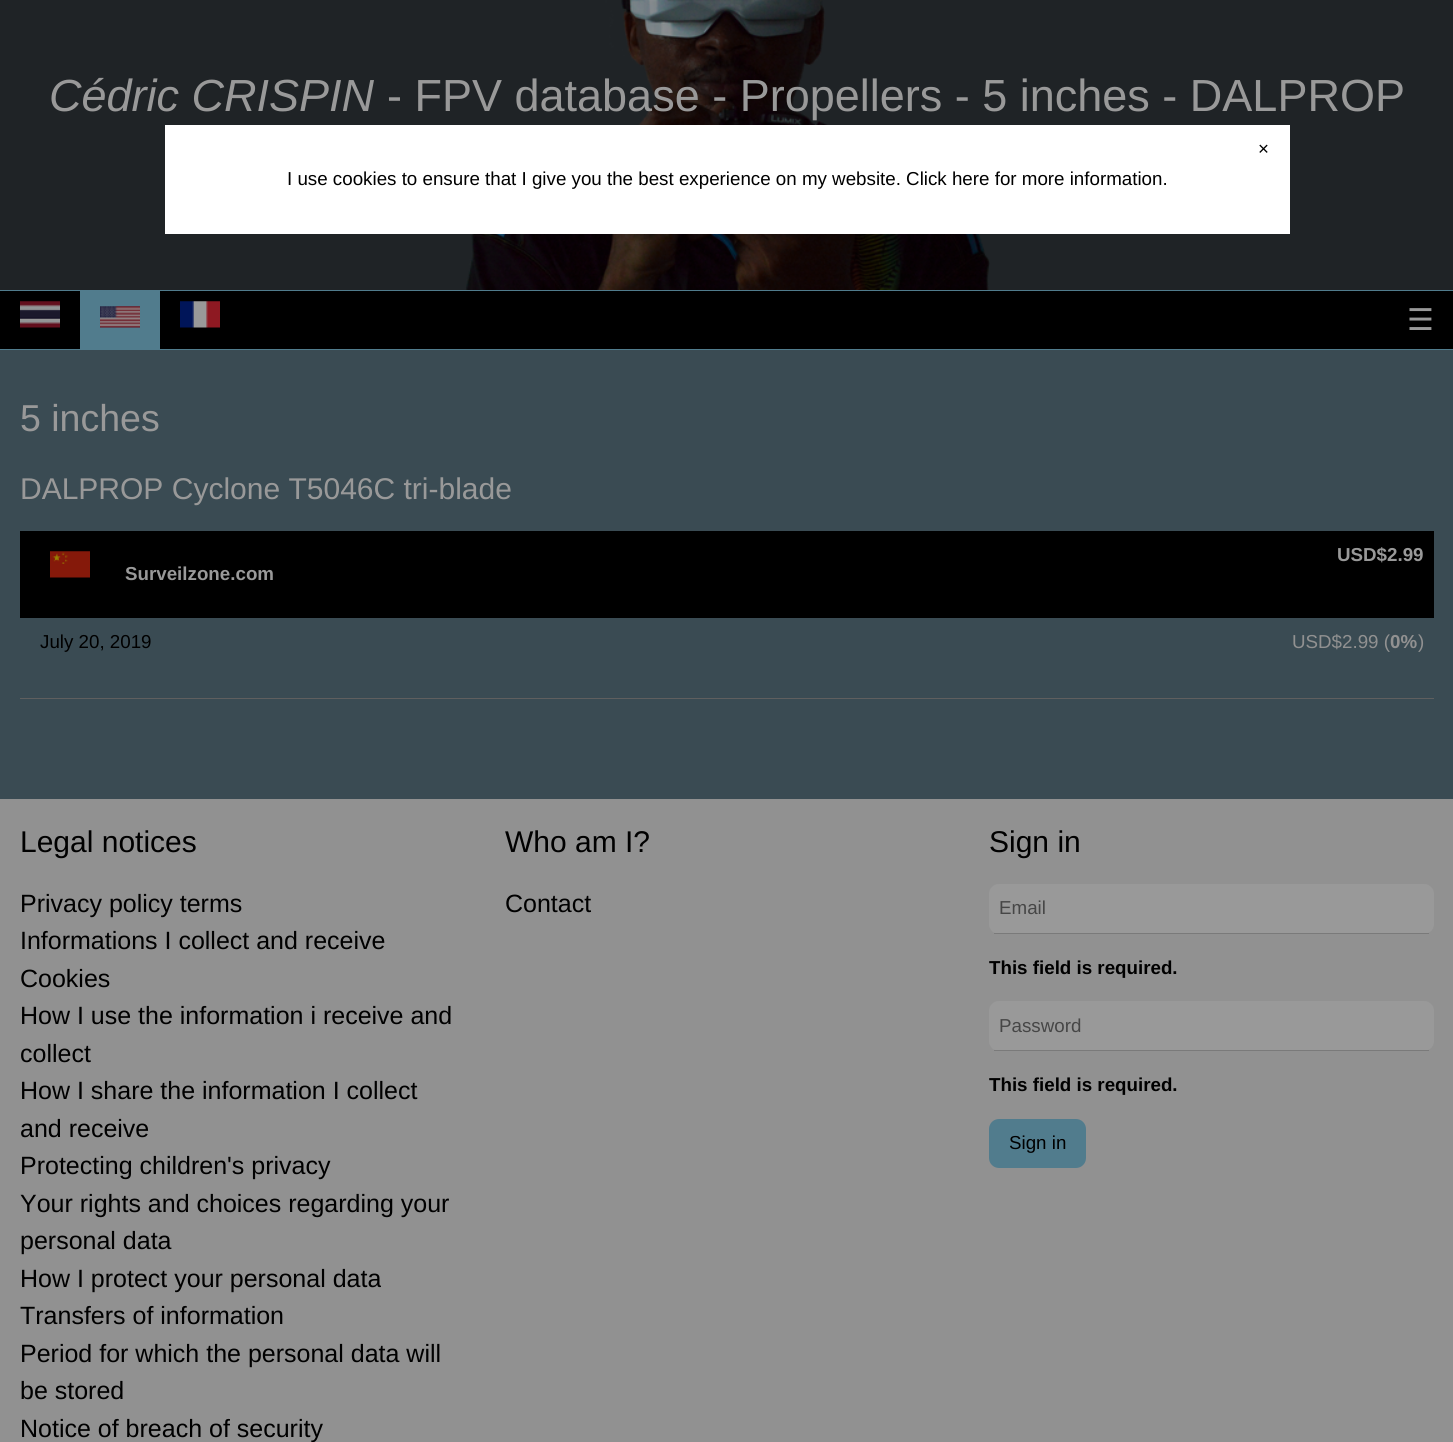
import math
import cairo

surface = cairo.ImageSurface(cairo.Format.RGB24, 1453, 1442)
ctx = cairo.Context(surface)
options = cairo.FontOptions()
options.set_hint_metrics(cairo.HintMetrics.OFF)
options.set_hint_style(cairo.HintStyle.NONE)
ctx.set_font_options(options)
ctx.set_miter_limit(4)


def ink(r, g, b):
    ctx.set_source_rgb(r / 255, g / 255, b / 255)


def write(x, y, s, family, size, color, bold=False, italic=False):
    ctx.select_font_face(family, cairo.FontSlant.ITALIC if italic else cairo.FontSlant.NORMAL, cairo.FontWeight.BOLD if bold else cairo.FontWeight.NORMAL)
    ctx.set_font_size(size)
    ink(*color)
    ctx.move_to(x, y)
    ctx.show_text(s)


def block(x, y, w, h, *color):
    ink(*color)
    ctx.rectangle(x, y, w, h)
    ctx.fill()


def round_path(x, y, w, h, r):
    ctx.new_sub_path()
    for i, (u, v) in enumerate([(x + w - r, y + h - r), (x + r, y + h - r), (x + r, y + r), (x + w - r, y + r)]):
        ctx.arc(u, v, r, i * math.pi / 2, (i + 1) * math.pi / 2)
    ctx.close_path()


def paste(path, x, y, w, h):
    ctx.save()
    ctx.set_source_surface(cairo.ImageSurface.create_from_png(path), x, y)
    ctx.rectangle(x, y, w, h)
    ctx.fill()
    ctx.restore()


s1 = dict(family="Liberation Sans", size=45, color=(153, 153, 153), italic=True)
s2 = dict(family="Liberation Sans", size=45, color=(153, 153, 153))
s3 = dict(family="DejaVu Sans", size=30, color=(153, 153, 153))
s4 = dict(family="Liberation Sans", size=37.5, color=(153, 153, 153))
s5 = dict(family="Liberation Sans", size=30, color=(153, 153, 153))
s6 = dict(family="Liberation Sans", size=18.75, color=(153, 153, 153), bold=True)
s7 = dict(family="Liberation Sans", size=18.75, color=(0, 0, 0))
s8 = dict(family="Liberation Sans", size=18.75, color=(145, 145, 145))
s9 = dict(family="Liberation Sans", size=18.75, color=(145, 145, 145), bold=True)
s10 = dict(family="Liberation Sans", size=30, color=(0, 0, 0))
s11 = dict(family="Liberation Sans", size=25, color=(0, 0, 0))
s12 = dict(family="Liberation Sans", size=18.75, color=(70, 70, 70))
s13 = dict(family="Liberation Sans", size=18.75, color=(0, 0, 0), bold=True)

ink(145, 145, 145)
ctx.paint()
block(0, 0, 1453, 290, 31, 35, 38)
paste("pic1.png", 465, 0, 525, 290)
block(0, 290, 1453, 1, 81, 124, 141)
write(49, 111, "Cédric CRISPIN", **s1)
write(387, 111, "- FPV database - Propellers - 5 inches - DALPROP", **s2)
block(0, 291, 1453, 58, 0, 0, 0)
block(0, 349, 1453, 1, 81, 124, 141)
paste("pic2.png", 20, 301, 40, 27)
block(80, 291, 80, 58, 81, 124, 141)
paste("pic3.png", 100, 306, 40, 22)
paste("pic4.png", 180, 301, 40, 27)
write(1407, 330, "☰", **s3)
block(0, 350, 1453, 449, 58, 75, 83)
write(20, 431, "5 inches", **s4)
write(20, 499, "DALPROP Cyclone T5046C tri-blade", **s5)
block(20, 531, 1414, 87, 0, 0, 0)
write(1337, 561, "USD$2.99", **s6)
paste("pic5.png", 50, 551, 40, 27)
write(125, 580, "Surveilzone.com", **s6)
block(20, 698, 1414, 1, 95, 95, 95)
write(40, 648, "July 20, 2019", **s7)
write(1292, 648, "USD$2.99 (", **s8)
write(1390, 648, "0%", **s9)
write(1418, 648, ")", **s8)
write(20, 852, "Legal notices", **s10)
write(20, 912, "Privacy policy terms", **s11)
write(20, 949, "Informations I collect and receive", **s11)
write(20, 987, "Cookies", **s11)
write(20, 1024, "How I use the information i receive and", **s11)
write(20, 1062, "collect", **s11)
write(20, 1099, "How I share the information I collect", **s11)
write(20, 1137, "and receive", **s11)
write(20, 1174, "Protecting children's privacy", **s11)
write(20, 1212, "Your rights and choices regarding your", **s11)
write(20, 1249, "personal data", **s11)
write(20, 1287, "How I protect your personal data", **s11)
write(20, 1324, "Transfers of information", **s11)
write(20, 1362, "Period for which the personal data will", **s11)
write(20, 1399, "be stored", **s11)
write(20, 1437, "Notice of breach of security", **s11)
write(505, 852, "Who am I?", **s10)
write(505, 912, "Contact", **s11)
write(989, 852, "Sign in", **s10)
ink(153, 153, 153)
round_path(989, 884, 445, 50, 10)
ctx.fill()
block(994, 933, 435, 1, 122, 122, 122)
write(999, 914, "Email", **s12)
write(989, 974, "This field is required.", **s13)
ink(153, 153, 153)
round_path(989, 1001, 445, 50, 10)
ctx.fill()
block(994, 1050, 435, 1, 122, 122, 122)
write(999, 1032, "Password", **s12)
write(989, 1091, "This field is required.", **s13)
ink(81, 124, 141)
round_path(989, 1119, 97, 49, 10)
ctx.fill()
write(1009, 1149, "Sign in", **s7)
block(165, 125, 1125, 109, 255, 255, 255)
write(1258, 155, "×", **s7)
write(287, 185, "I use cookies to ensure that I give you the best experience on my website. Click here for more information.", **s7)
surface.write_to_png("screenshot.png")
